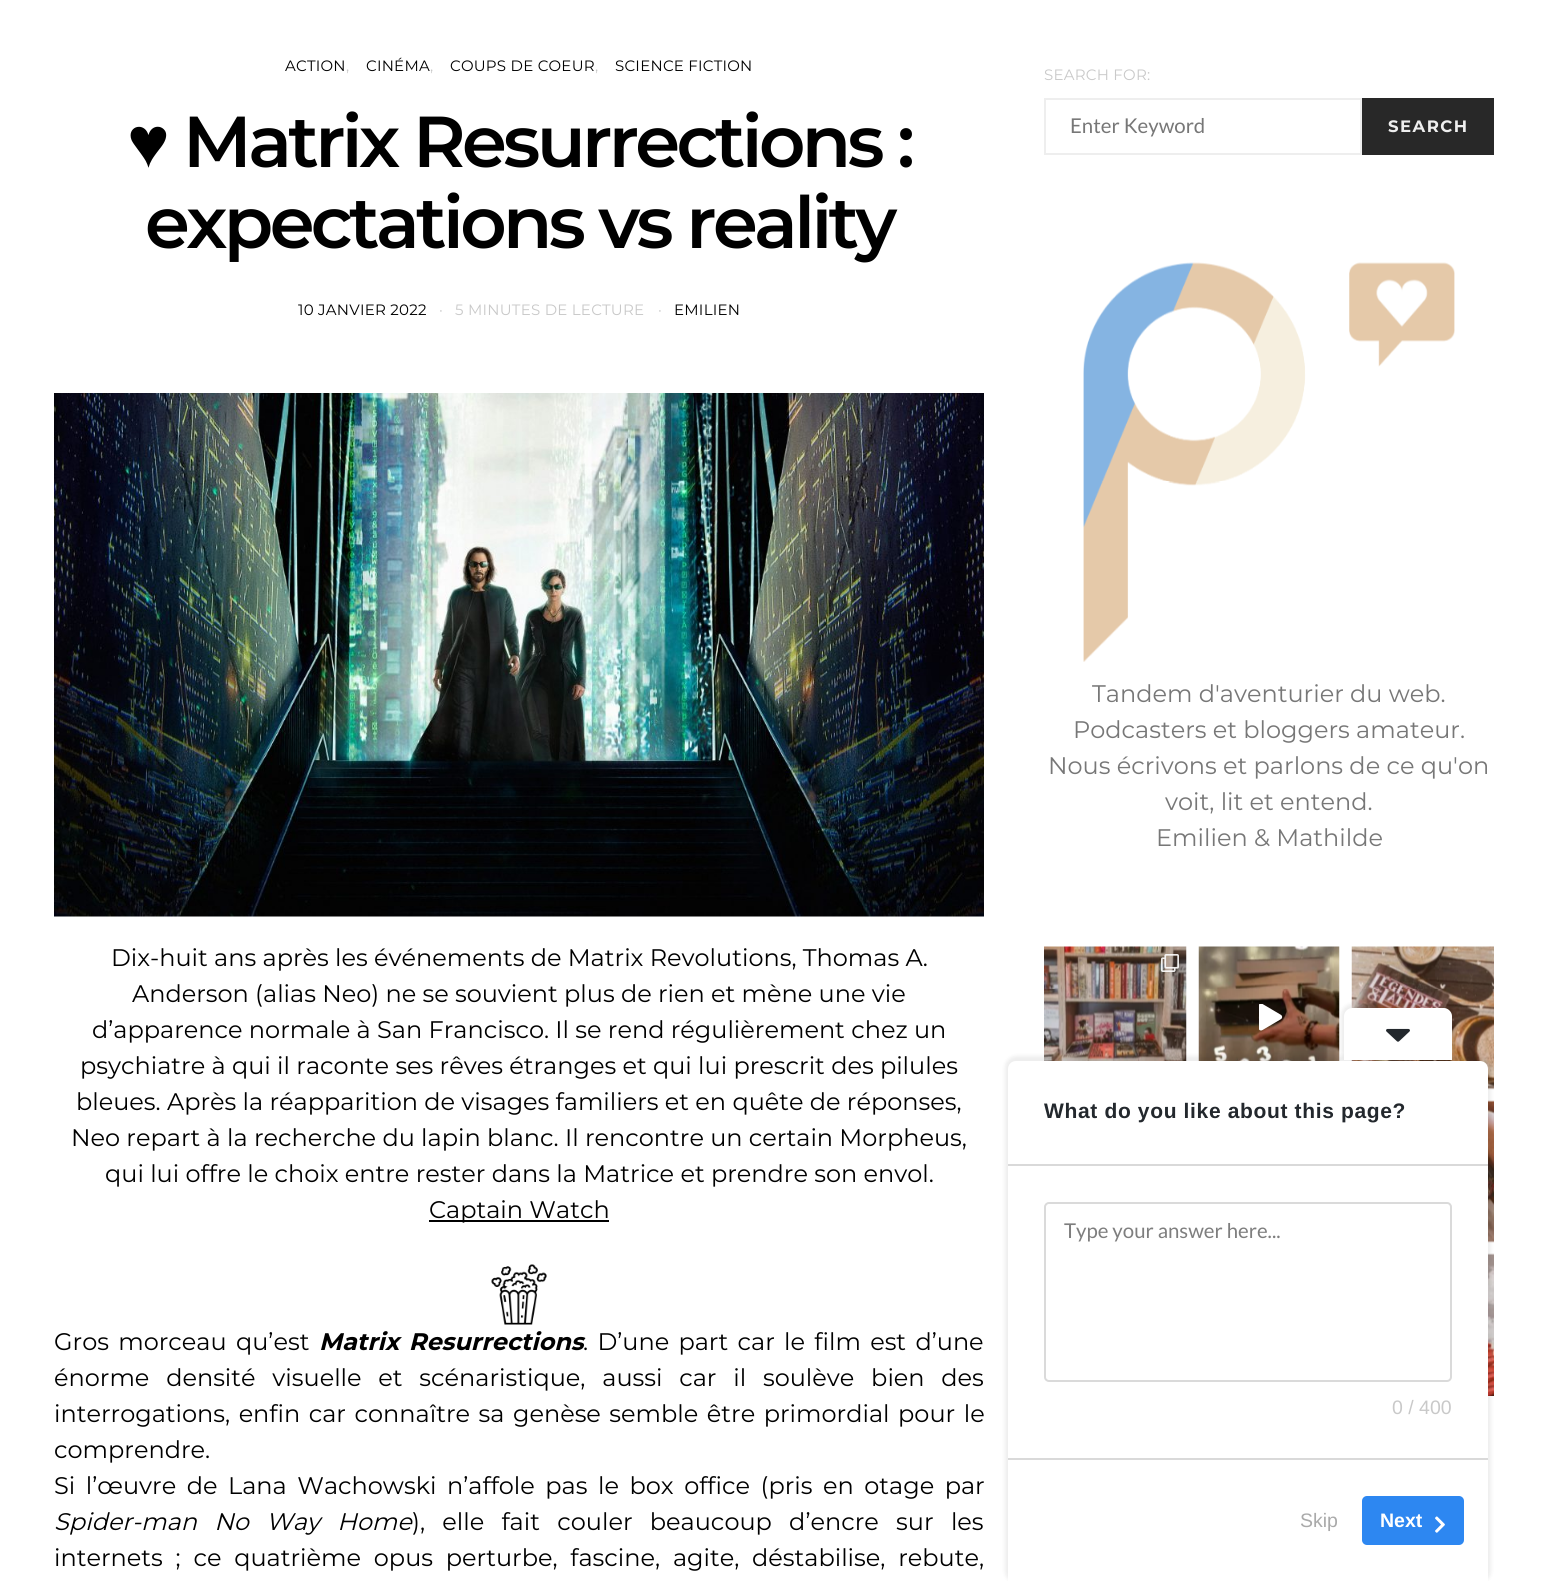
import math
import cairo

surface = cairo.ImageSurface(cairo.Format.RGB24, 1547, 1581)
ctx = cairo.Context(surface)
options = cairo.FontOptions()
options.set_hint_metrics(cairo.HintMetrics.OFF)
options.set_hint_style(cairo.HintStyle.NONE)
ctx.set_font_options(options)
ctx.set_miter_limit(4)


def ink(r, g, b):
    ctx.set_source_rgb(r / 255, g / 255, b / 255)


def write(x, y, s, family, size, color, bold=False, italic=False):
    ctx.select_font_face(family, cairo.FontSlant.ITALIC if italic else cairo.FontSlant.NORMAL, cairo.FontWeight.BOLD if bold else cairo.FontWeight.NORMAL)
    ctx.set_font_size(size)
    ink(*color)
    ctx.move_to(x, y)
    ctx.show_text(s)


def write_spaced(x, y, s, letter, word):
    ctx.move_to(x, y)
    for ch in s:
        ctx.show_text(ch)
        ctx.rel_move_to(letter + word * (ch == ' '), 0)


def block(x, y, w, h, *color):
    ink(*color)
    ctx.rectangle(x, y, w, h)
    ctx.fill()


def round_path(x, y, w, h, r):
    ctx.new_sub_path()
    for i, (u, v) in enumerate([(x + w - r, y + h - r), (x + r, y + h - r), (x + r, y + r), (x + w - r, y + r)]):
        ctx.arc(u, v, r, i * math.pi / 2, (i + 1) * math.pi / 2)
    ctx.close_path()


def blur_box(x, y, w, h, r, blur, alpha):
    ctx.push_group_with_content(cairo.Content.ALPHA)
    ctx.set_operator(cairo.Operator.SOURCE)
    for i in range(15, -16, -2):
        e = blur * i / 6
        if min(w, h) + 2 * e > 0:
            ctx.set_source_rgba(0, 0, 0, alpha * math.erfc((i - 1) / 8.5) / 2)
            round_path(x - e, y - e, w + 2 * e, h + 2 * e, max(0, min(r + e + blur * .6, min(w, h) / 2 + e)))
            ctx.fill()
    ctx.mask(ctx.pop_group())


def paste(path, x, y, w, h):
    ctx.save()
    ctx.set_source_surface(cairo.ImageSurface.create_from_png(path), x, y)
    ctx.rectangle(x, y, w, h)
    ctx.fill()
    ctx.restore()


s1 = dict(family="Montserrat", size=24, color=(0, 0, 0))
s2 = dict(family="Lato", size=20.4, color=(119, 119, 119))
s3 = dict(family="Montserrat", size=24, color=(119, 119, 119))
s4 = dict(family="Lato", size=20.4, color=(126, 126, 126))
s5 = dict(family="Liberation Sans", size=19.5, color=(201, 201, 201))
s6 = dict(family="Liberation Sans", size=19.5, color=(170, 170, 170))
s7 = dict(family="Liberation Sans", size=19.5, color=(255, 255, 255), bold=True)

ink(255, 255, 255)
ctx.paint()
ctx.select_font_face("Montserrat")
ctx.set_font_size(15)
ink(0, 0, 0)
write_spaced(285, 71, "ACTION", 0.25, 0)
ink(201, 201, 201)
write_spaced(346, 71, ",", 0.25, 0)
ink(0, 0, 0)
write_spaced(366, 71, "CINÉMA", 0.25, 0)
ink(201, 201, 201)
write_spaced(430, 71, ",", 0.25, 0)
ink(0, 0, 0)
write_spaced(450, 71, "COUPS DE COEUR", 0.25, 0)
ink(201, 201, 201)
write_spaced(595, 71, ",", 0.25, 0)
ink(0, 0, 0)
write_spaced(615, 71, "SCIENCE FICTION", 0.25, 0)
ctx.select_font_face("Liberation Sans", cairo.FontSlant.NORMAL, cairo.FontWeight.BOLD)
ctx.set_font_size(72)
write_spaced(127, 167, "♥", -3.6, 0)
ctx.select_font_face("Montserrat SemiBold")
write_spaced(183, 167, "Matrix Resurrections :", -3.6, 0)
write_spaced(145, 248, "expectations vs reality", -3.6, 0)
ctx.select_font_face("Montserrat")
ctx.set_font_size(15)
write_spaced(298, 315, "10 JANVIER 2022", 0.25, 0)
ink(201, 201, 201)
write_spaced(439, 315, "·", 0.25, 0)
write_spaced(455, 315, "5 MINUTES DE LECTURE", 0.25, 0)
write_spaced(658, 315, "·", 0.25, 0)
ink(0, 0, 0)
write_spaced(674, 315, "EMILIEN", 0.25, 0)
paste("pic1.png", 54, 393, 930, 524)
write(111, 966, "Dix-huit ans après les événements de Matrix Revolutions, Thomas A.", **s1)
write(132, 1002, "Anderson (alias Neo) ne se souvient plus de rien et mène une vie", **s1)
write(92, 1038, "d’apparence normale à San Francisco. Il se rend régulièrement chez un", **s1)
write(80, 1074, "psychiatre à qui il raconte ses rêves étranges et qui lui prescrit des pilules", **s1)
write(76, 1110, "bleues. Après la réapparition de visages familiers et en quête de réponses,", **s1)
write(71, 1146, "Neo repart à la recherche du lapin blanc. Il rencontre un certain Morpheus,", **s1)
write(105, 1182, "qui lui offre le choix entre rester dans la Matrice et prendre son envol.", **s1)
block(429, 1220, 180, 2, 0, 0, 0)
write(429, 1218, "Captain Watch", **s1)
paste("pic2.png", 491, 1264, 56, 61)
write_spaced(54, 1350, "Gros morceau qu’est", 0, 3)
ctx.select_font_face("Montserrat", cairo.FontSlant.ITALIC, cairo.FontWeight.BOLD)
write_spaced(319, 1350, "Matrix Resurrections", 0, 3)
ctx.select_font_face("Montserrat")
write_spaced(583, 1350, ". D’une part car le film est d’une", 0, 3)
write_spaced(54, 1386, "énorme densité visuelle et scénaristique, aussi car il soulève bien des", 0, 10.5)
write_spaced(54, 1422, "interrogations, enfin car connaître sa genèse semble être primordial pour le", 0, 2.25)
write(54, 1458, "comprendre.", **s1)
write_spaced(54, 1494, "Si l’œuvre de Lana Wachowski n’affole pas le box office (pris en otage par", 0, 4.25)
ctx.select_font_face("Montserrat", cairo.FontSlant.ITALIC)
write_spaced(54, 1530, "Spider-man No Way Home", 0, 11)
ctx.select_font_face("Montserrat")
write_spaced(412, 1530, "), elle fait couler beaucoup d’encre sur les", 0, 11)
write_spaced(54, 1566, "internets ; ce quatrième opus perturbe, fascine, agite, déstabilise, rebute,", 0, 6.5)
ctx.set_font_size(15)
ink(201, 201, 201)
write_spaced(1044, 80, "SEARCH FOR:", 0.25, 0)
ctx.rectangle(1045, 99, 316, 55)
ink(238, 238, 238)
ctx.stroke()
write(1070, 133, "Enter Keyword", **s2)
block(1362, 98, 132, 57, 40, 40, 40)
ctx.select_font_face("Montserrat", cairo.FontSlant.NORMAL, cairo.FontWeight.BOLD)
ctx.set_font_size(16.5)
ink(238, 238, 238)
write_spaced(1388, 132, "SEARCH", 1.5, 0)
paste("pic3.png", 1083, 262, 372, 400)
write(1092, 702, "Tandem d'aventurier du web.", **s3)
write(1073, 738, "Podcasters et bloggers amateur.", **s3)
write(1048, 774, "Nous écrivons et parlons de ce qu'on", **s3)
write(1165, 810, "voit, lit et entend.", **s3)
write(1156, 846, "Emilien & Mathilde", **s3)
paste("pic4.png", 1044, 946, 143, 115)
paste("pic5.png", 1161, 954, 18, 18)
paste("pic6.png", 1198, 946, 142, 115)
paste("pic7.png", 1259, 1004, 24, 27)
paste("pic8.png", 1351, 946, 143, 144)
paste("pic9.png", 1488, 1100, 6, 143)
paste("pic10.png", 1488, 1253, 6, 143)
ink(0, 0, 0)
blur_box(1005, 1056, 486, 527, 11, 2, 0.07)
ink(255, 255, 255)
ctx.new_path()
ctx.move_to(1016, 1061)
ctx.line_to(1480, 1061)
ctx.curve_to(1484.5, 1061, 1488, 1064.5, 1488, 1069)
ctx.line_to(1488, 1581)
ctx.line_to(1008, 1581)
ctx.line_to(1008, 1069)
ctx.curve_to(1008, 1064.5, 1011.5, 1061, 1016, 1061)
ctx.close_path()
ctx.fill()
ctx.save()
ctx.new_path()
ctx.move_to(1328, 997)
ctx.line_to(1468, 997)
ctx.line_to(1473.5, 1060)
ctx.line_to(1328, 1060)
ctx.close_path()
ctx.clip()
ink(0, 0, 0)
blur_box(1341, 1004, 114, 58, 11, 2, 0.07)
ctx.restore()
ctx.new_path()
ctx.move_to(1352, 1008)
ctx.line_to(1444, 1008)
ctx.curve_to(1448, 1008, 1452, 1012, 1452, 1016)
ctx.line_to(1452, 1060)
ctx.line_to(1344, 1060)
ctx.line_to(1344, 1016)
ctx.curve_to(1344, 1012, 1348, 1008, 1352, 1008)
ctx.close_path()
ctx.fill()
paste("pic11.png", 1386, 1028, 24, 14)
ctx.select_font_face("Liberation Sans", cairo.FontSlant.NORMAL, cairo.FontWeight.BOLD)
ctx.set_font_size(21)
ink(35, 40, 45)
write_spaced(1044, 1118, "What do you like about this page?", 0.65, 0)
block(1008, 1164, 480, 2, 217, 217, 217)
block(1008, 1458, 480, 2, 217, 217, 217)
round_path(1045, 1203, 406, 178, 4)
ink(218, 218, 218)
ctx.stroke()
write(1064, 1238, "Type your answer here...", **s4)
write(1392, 1414, "0 / 400", **s5)
write(1300, 1527, "Skip", **s6)
ink(45, 135, 241)
round_path(1362, 1496, 102, 49, 5)
ctx.fill()
write(1380, 1527, "Next", **s7)
paste("pic12.png", 1435, 1516, 10, 17)
surface.write_to_png("screenshot.png")
